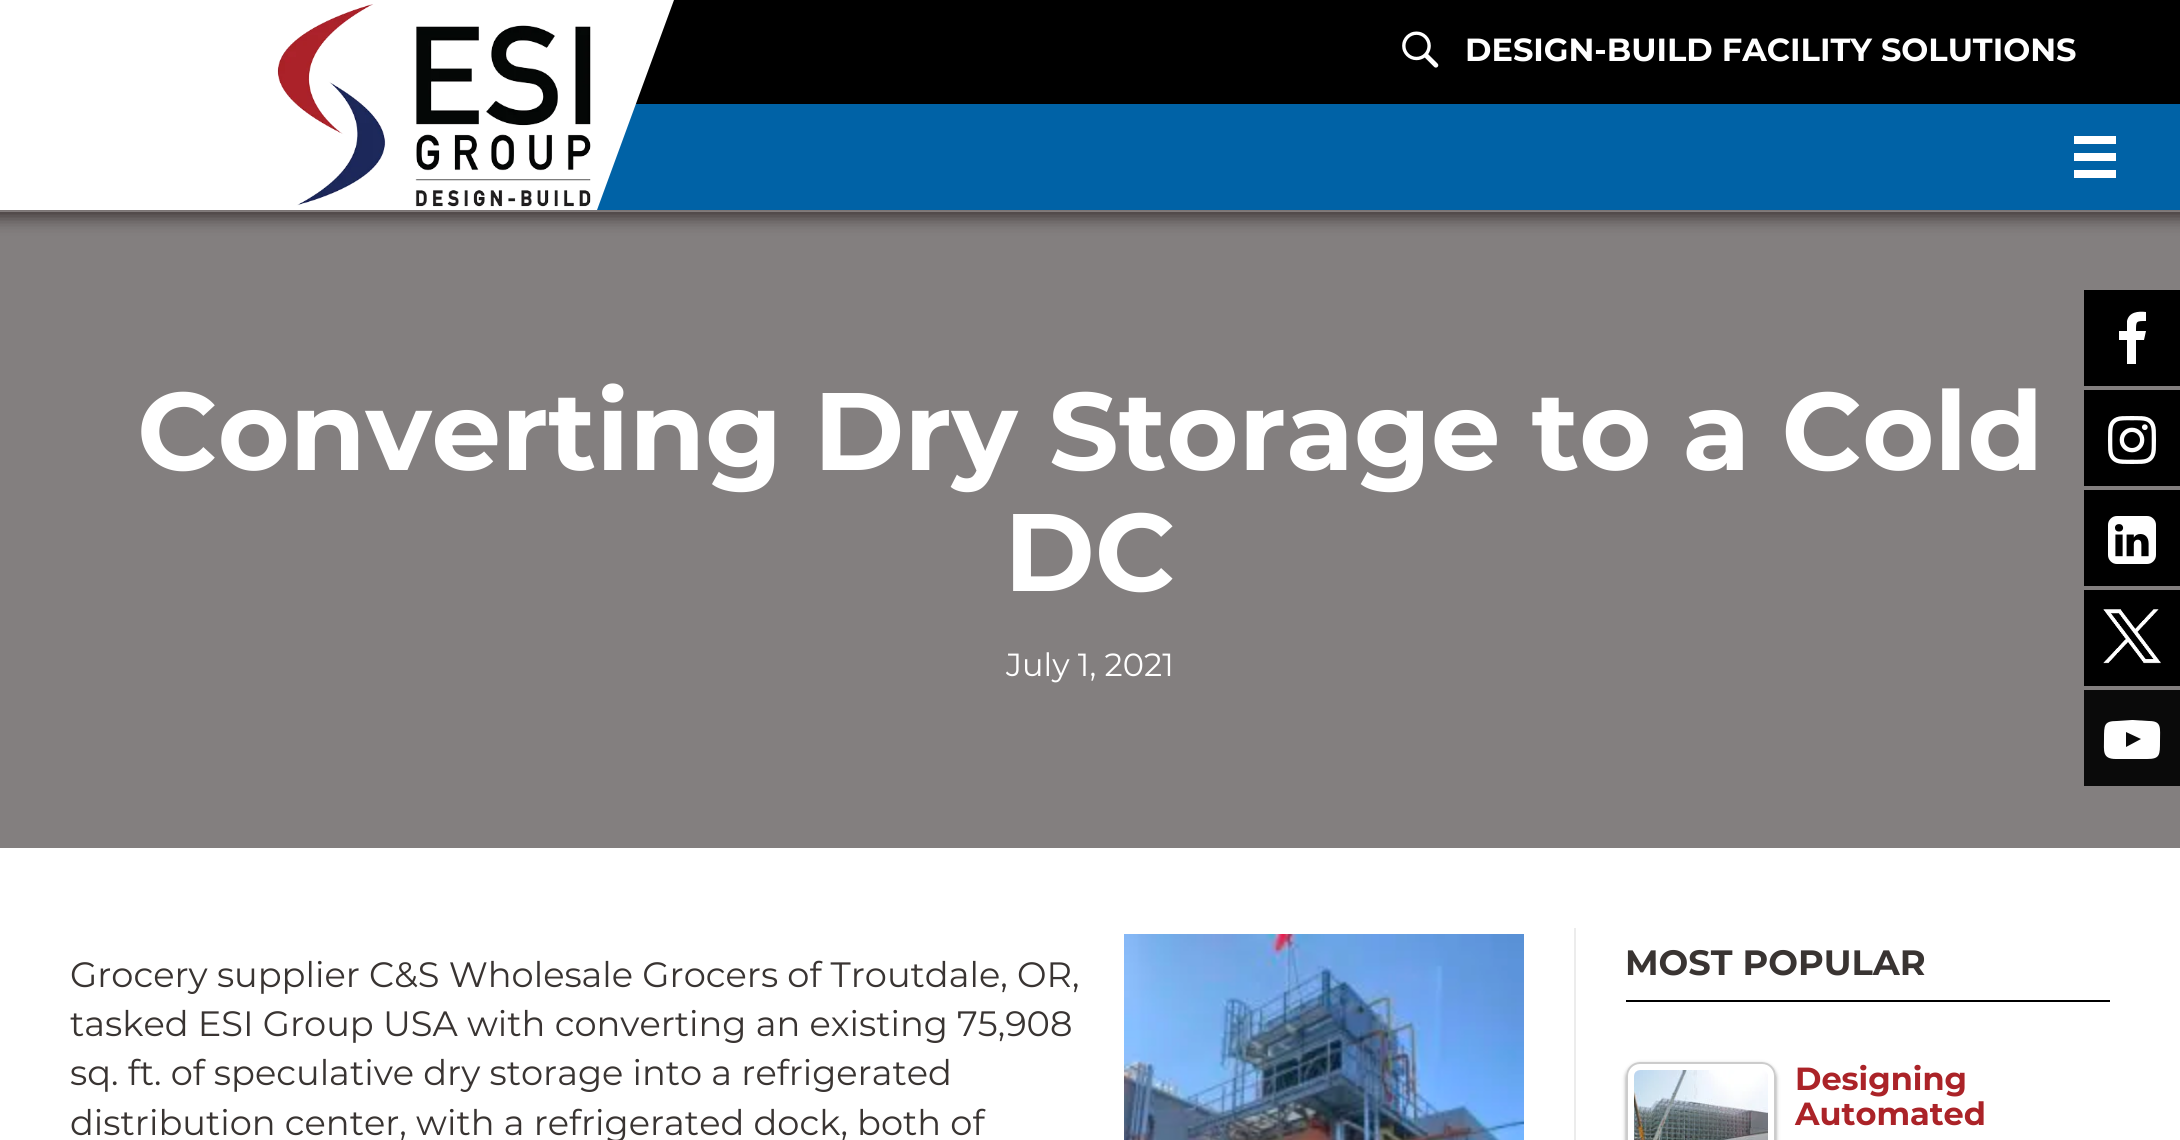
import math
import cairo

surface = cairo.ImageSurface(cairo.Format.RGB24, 2180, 1140)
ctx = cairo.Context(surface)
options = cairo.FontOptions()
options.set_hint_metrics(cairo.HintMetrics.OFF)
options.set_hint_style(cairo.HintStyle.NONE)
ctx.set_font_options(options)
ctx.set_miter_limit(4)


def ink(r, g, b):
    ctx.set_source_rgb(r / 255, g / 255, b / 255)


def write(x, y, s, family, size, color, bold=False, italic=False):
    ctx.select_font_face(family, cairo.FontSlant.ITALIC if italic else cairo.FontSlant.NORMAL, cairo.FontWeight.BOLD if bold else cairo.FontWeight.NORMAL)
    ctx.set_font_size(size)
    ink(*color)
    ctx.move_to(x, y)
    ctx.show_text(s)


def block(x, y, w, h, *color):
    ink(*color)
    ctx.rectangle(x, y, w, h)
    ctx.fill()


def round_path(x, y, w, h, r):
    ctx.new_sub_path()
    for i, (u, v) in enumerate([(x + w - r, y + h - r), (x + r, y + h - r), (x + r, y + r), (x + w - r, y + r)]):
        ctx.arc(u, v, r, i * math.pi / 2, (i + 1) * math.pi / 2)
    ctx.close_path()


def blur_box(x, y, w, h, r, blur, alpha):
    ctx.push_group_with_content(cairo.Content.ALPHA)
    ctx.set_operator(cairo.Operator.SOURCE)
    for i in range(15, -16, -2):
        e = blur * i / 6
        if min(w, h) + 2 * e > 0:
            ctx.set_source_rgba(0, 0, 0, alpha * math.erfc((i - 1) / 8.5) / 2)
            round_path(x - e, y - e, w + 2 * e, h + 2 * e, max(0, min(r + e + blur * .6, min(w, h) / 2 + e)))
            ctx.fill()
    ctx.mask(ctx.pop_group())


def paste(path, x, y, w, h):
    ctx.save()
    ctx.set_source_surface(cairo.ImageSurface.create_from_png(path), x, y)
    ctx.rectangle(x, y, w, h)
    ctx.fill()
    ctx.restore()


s1 = dict(family="Montserrat", size=32, color=(255, 255, 255), bold=True)
s2 = dict(family="Montserrat", size=110, color=(255, 255, 255), bold=True)
s3 = dict(family="Montserrat", size=32, color=(255, 255, 255))
s4 = dict(family="Montserrat", size=35.2, color=(57, 52, 50))
s5 = dict(family="Montserrat", size=35.2, color=(57, 52, 50), bold=True)
s6 = dict(family="Montserrat", size=32, color=(171, 35, 40), bold=True)

ink(221, 221, 221)
ctx.paint()
block(0, 212, 2180, 928, 255, 255, 255)
ink(43, 32, 32)
blur_box(-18, -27, 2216, 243, 0, 9, 0.74)
block(0, 0, 273, 210, 255, 255, 255)
block(597, 104, 1583, 106, 0, 98, 166)
block(672, 0, 1508, 4, 0, 0, 0)
block(635, 4, 1545, 100, 0, 0, 0)
ink(255, 255, 255)
ctx.new_path()
ctx.move_to(273, 0)
ctx.line_to(674, 0)
ctx.line_to(597, 210)
ctx.line_to(196, 210)
ctx.close_path()
ctx.fill()
paste("pic1.png", 277, 4, 314, 203)
paste("pic2.png", 1402, 31, 37, 37)
write(1465, 61, "DESIGN-BUILD FACILITY SOLUTIONS", **s1)
block(2074, 136, 42, 8, 255, 255, 255)
block(2074, 153, 42, 8, 255, 255, 255)
block(2074, 170, 42, 8, 255, 255, 255)
ctx.set_source_rgba(0.039, 0, 0, 0.5)
ctx.rectangle(0, 212, 2180, 636)
ctx.fill()
write(137, 470, "Converting Dry Storage to a Cold", **s2)
write(1004, 591, "DC", **s2)
write(1006, 676, "July 1, 2021", **s3)
write(70, 987, "Grocery supplier C&S Wholesale Grocers of Troutdale, OR,", **s4)
write(70, 1036, "tasked ESI Group USA with converting an existing 75,908", **s4)
write(70, 1085, "sq. ft. of speculative dry storage into a refrigerated", **s4)
write(70, 1135, "distribution center, with a refrigerated dock, both of", **s4)
paste("pic3.png", 1124, 934, 400, 206)
block(1574, 928, 2, 212, 236, 236, 236)
block(1626, 1000, 484, 2, 0, 0, 0)
write(1625, 975, "MOST POPULAR", **s5)
ctx.save()
ctx.set_fill_rule(cairo.FillRule.EVEN_ODD)
ctx.new_path()
ctx.move_to(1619, 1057)
ctx.line_to(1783, 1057)
ctx.line_to(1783, 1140)
ctx.line_to(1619, 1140)
ctx.close_path()
ctx.move_to(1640, 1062)
ctx.line_to(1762, 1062)
ctx.curve_to(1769.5, 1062, 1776, 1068.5, 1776, 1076)
ctx.line_to(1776, 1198)
ctx.curve_to(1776, 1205.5, 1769.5, 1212, 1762, 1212)
ctx.line_to(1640, 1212)
ctx.curve_to(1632.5, 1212, 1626, 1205.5, 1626, 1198)
ctx.line_to(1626, 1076)
ctx.curve_to(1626, 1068.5, 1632.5, 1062, 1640, 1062)
ctx.close_path()
ctx.clip()
ink(0, 0, 0)
blur_box(1626, 1064, 150, 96, 14, 2, 0.4)
ctx.restore()
round_path(1627, 1063, 148, 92, 13)
ink(204, 204, 204)
ctx.stroke()
paste("pic4.png", 1634, 1070, 134, 70)
write(1795, 1090, "Designing", **s6)
write(1795, 1125, "Automated", **s6)
block(2084, 290, 96, 96, 0, 0, 0)
ink(255, 255, 255)
ctx.new_path()
ctx.move_to(2146, 312)
ctx.line_to(2146, 321)
ctx.curve_to(2136, 321, 2136, 321, 2136, 331)
ctx.line_to(2146, 331)
ctx.line_to(2144, 340)
ctx.line_to(2136, 340)
ctx.line_to(2136, 364)
ctx.line_to(2127, 364)
ctx.line_to(2127, 340)
ctx.line_to(2119, 340)
ctx.line_to(2119, 331)
ctx.line_to(2127, 331)
ctx.line_to(2127, 321)
ctx.curve_to(2129, 312, 2138, 311, 2146, 312)
ctx.close_path()
ctx.fill()
block(2084, 390, 96, 96, 0, 0, 0)
paste("pic5.png", 2108, 416, 48, 48)
block(2084, 490, 96, 96, 0, 0, 0)
paste("pic6.png", 2108, 516, 48, 48)
block(2084, 590, 96, 96, 0, 0, 0)
paste("pic7.png", 2103, 609, 58, 55)
block(2084, 690, 96, 96, 10, 10, 10)
ink(255, 255, 255)
ctx.new_path()
ctx.move_to(2126, 747)
ctx.line_to(2141, 739)
ctx.line_to(2126, 732)
ctx.close_path()
ctx.move_to(2132, 720)
ctx.line_to(2149, 721)
ctx.curve_to(2162, 721, 2160, 728, 2160, 741)
ctx.curve_to(2160, 755, 2160, 759, 2147, 759)
ctx.line_to(2116, 759)
ctx.curve_to(2102, 759, 2104, 751, 2104, 739)
ctx.curve_to(2104, 725, 2104, 721, 2117, 721)
ctx.close_path()
ctx.fill()
surface.write_to_png("screenshot.png")
